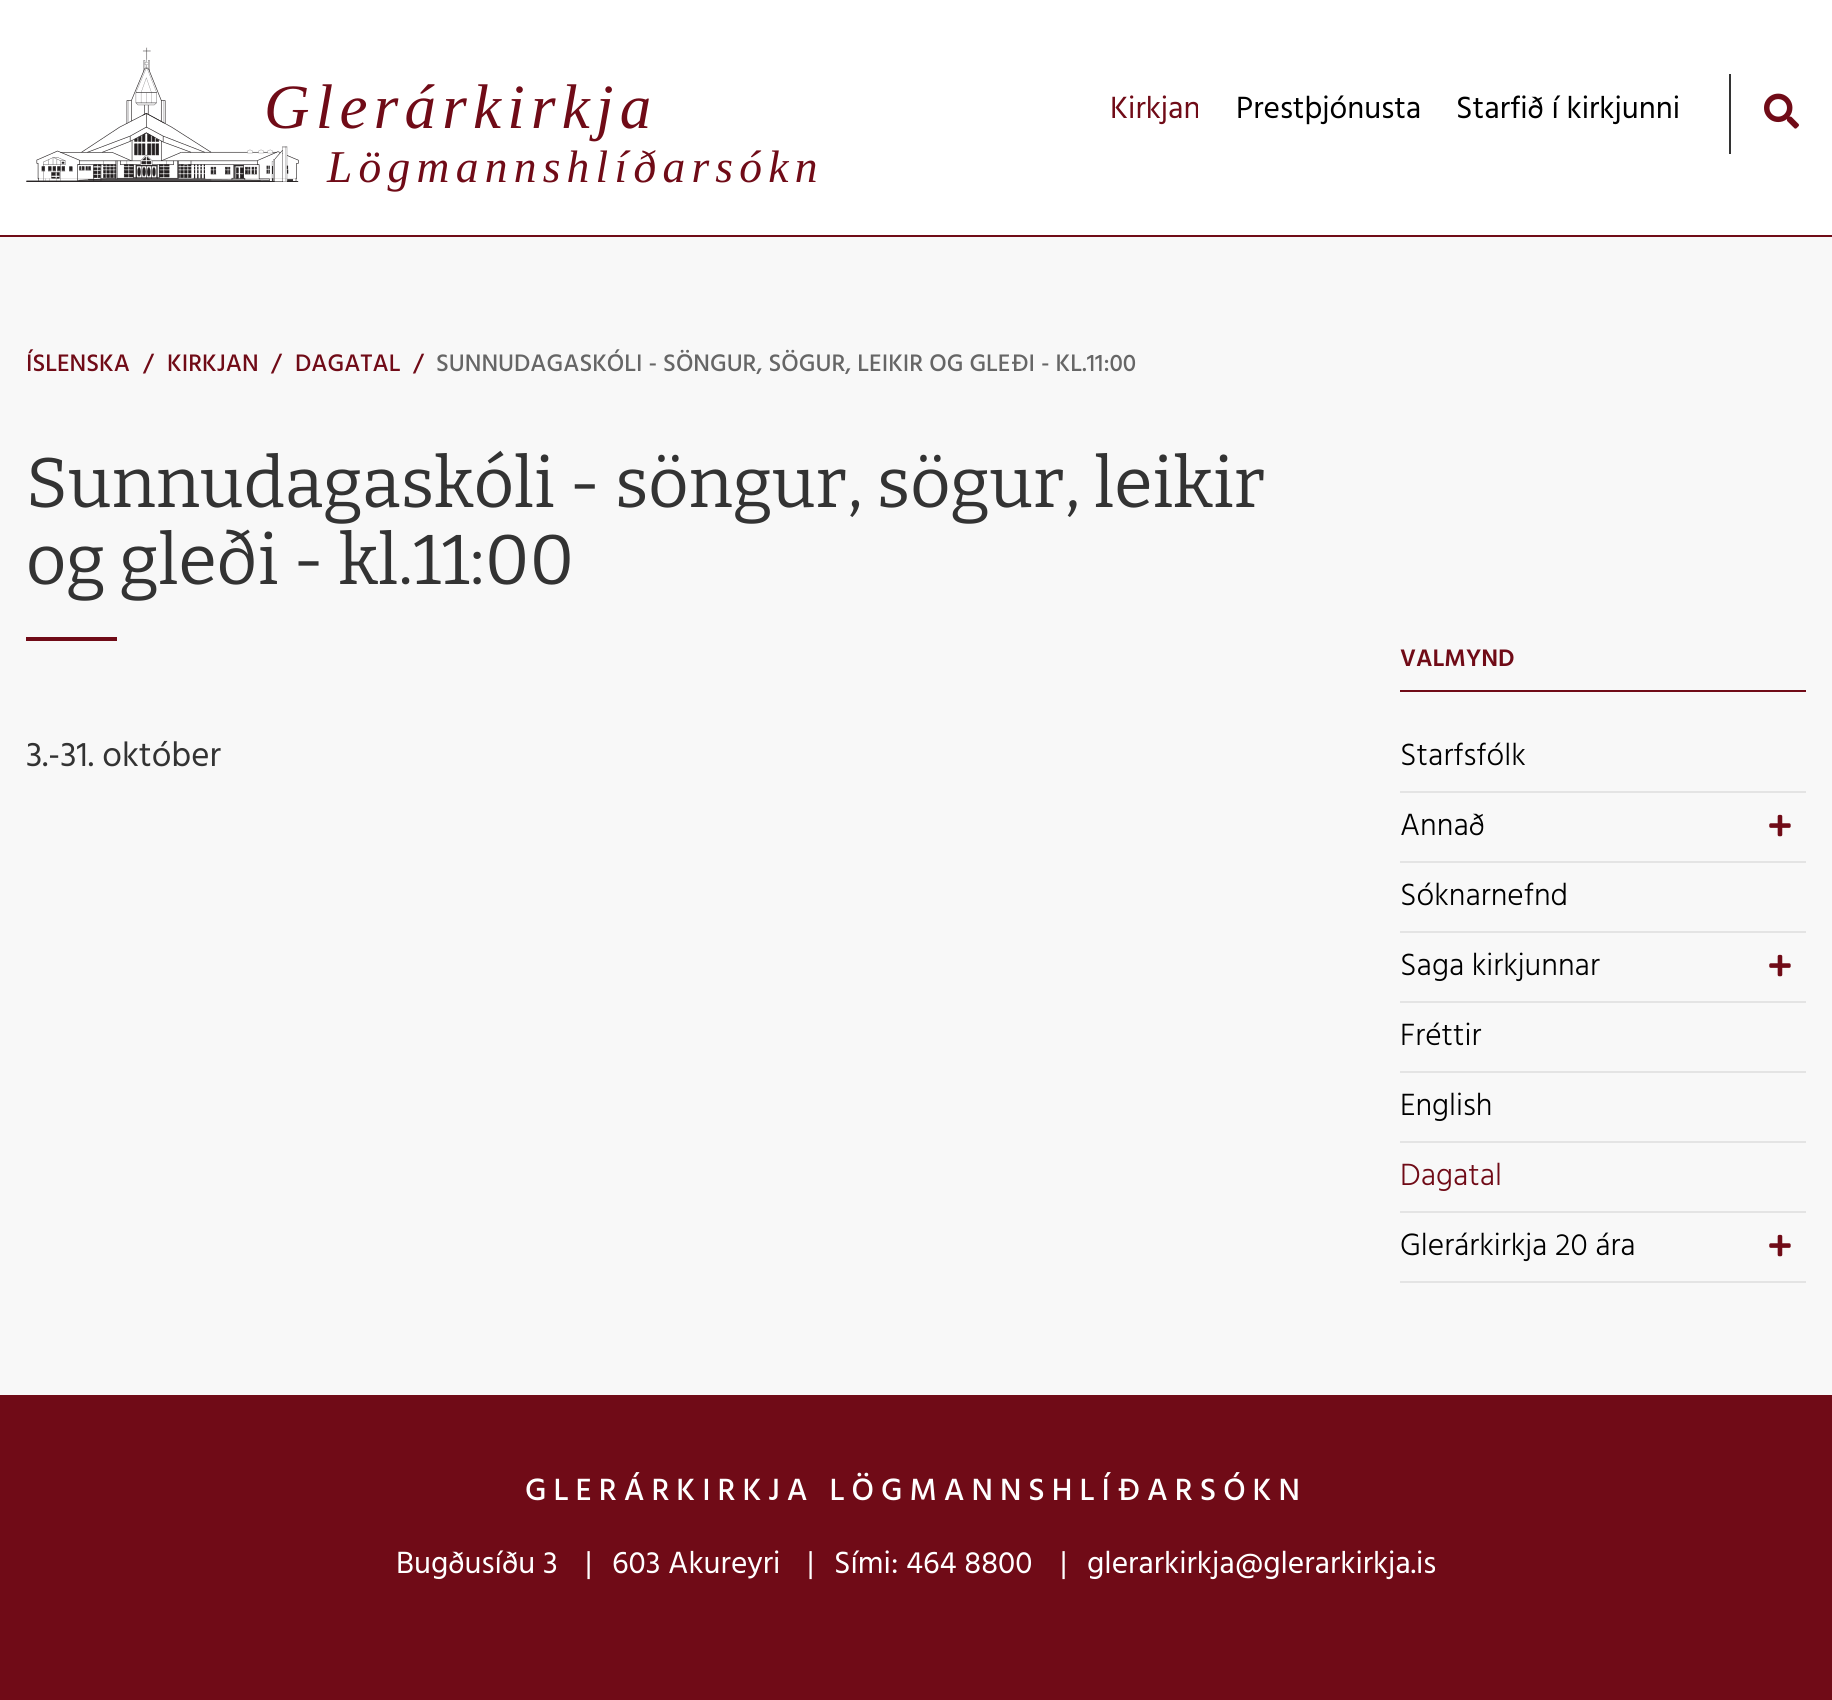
import math
import cairo

surface = cairo.ImageSurface(cairo.Format.RGB24, 1832, 1700)
ctx = cairo.Context(surface)
options = cairo.FontOptions()
options.set_hint_metrics(cairo.HintMetrics.OFF)
options.set_hint_style(cairo.HintStyle.NONE)
ctx.set_font_options(options)
ctx.set_miter_limit(4)


def ink(r, g, b):
    ctx.set_source_rgb(r / 255, g / 255, b / 255)


def write(x, y, s, family, size, color, bold=False, italic=False):
    ctx.select_font_face(family, cairo.FontSlant.ITALIC if italic else cairo.FontSlant.NORMAL, cairo.FontWeight.BOLD if bold else cairo.FontWeight.NORMAL)
    ctx.set_font_size(size)
    ink(*color)
    ctx.move_to(x, y)
    ctx.show_text(s)


def write_spaced(x, y, s, letter, word):
    ctx.move_to(x, y)
    for ch in s:
        ctx.show_text(ch)
        ctx.rel_move_to(letter + word * (ch == ' '), 0)


def block(x, y, w, h, *color):
    ink(*color)
    ctx.rectangle(x, y, w, h)
    ctx.fill()


def paste(path, x, y, w, h):
    ctx.save()
    ctx.set_source_surface(cairo.ImageSurface.create_from_png(path), x, y)
    ctx.rectangle(x, y, w, h)
    ctx.fill()
    ctx.restore()


s1 = dict(family="Hind", size=31.5, color=(112, 11, 23))
s2 = dict(family="Hind", size=31.5, color=(0, 0, 0))
s3 = dict(family="Hind Medium", size=24.5, color=(112, 11, 23))
s4 = dict(family="Hind Medium", size=24.5, color=(102, 102, 102))
s5 = dict(family="Bitter Thin", size=70, color=(51, 51, 51))
s6 = dict(family="Hind", size=35, color=(51, 51, 51))
s7 = dict(family="Hind SemiBold", size=24.5, color=(112, 11, 23))
s8 = dict(family="Hind Light", size=31.5, color=(0, 0, 0))
s9 = dict(family="Hind Light", size=31.5, color=(112, 11, 23))
s10 = dict(family="Hind", size=31.5, color=(255, 255, 255))

ink(248, 248, 248)
ctx.paint()
block(0, 0, 1832, 235, 255, 255, 255)
block(0, 235, 1832, 2, 112, 11, 23)
paste("pic1.png", 26, 47, 273, 135)
ctx.select_font_face("Liberation Serif", cairo.FontSlant.ITALIC)
ctx.set_font_size(63)
write_spaced(264, 128, "Glerárkirkja", 6.25, 0)
ctx.set_font_size(45.5)
write_spaced(327, 182, "Lögmannshlíðarsókn", 6.25, 0)
write(1110, 118, "Kirkjan", **s1)
write(1236, 118, "Prestþjónusta", **s2)
write(1456, 118, "Starfið í kirkjunni", **s2)
block(1729, 74, 2, 80, 51, 51, 51)
paste("pic2.png", 1764, 93, 35, 36)
write(26, 371, "ÍSLENSKA", **s3)
write(143, 371, "/", **s3)
write(167, 371, "KIRKJAN", **s3)
write(271, 371, "/", **s3)
write(295, 371, "DAGATAL", **s3)
write(413, 371, "/", **s3)
write(436, 371, "SUNNUDAGASKÓLI - SÖNGUR, SÖGUR, LEIKIR OG GLEÐI - KL.11:00", **s4)
write(26, 507, "Sunnudagaskóli - söngur, sögur, leikir", **s5)
write(26, 584, "og gleði - kl.11:00", **s5)
block(26, 637, 91, 4, 112, 11, 23)
write(26, 766, "3.-31. október", **s6)
block(1400, 690, 406, 2, 112, 11, 23)
write(1400, 666, "VALMYND", **s7)
block(1400, 791, 406, 2, 228, 228, 228)
write(1400, 765, "Starfsfólk", **s8)
block(1400, 861, 406, 2, 228, 228, 228)
write(1400, 835, "Annað", **s8)
paste("pic3.png", 1769, 814, 22, 23)
block(1400, 931, 406, 2, 228, 228, 228)
write(1400, 905, "Sóknarnefnd", **s8)
block(1400, 1001, 406, 2, 228, 228, 228)
write(1400, 975, "Saga kirkjunnar", **s8)
paste("pic3.png", 1769, 954, 22, 23)
block(1400, 1071, 406, 2, 228, 228, 228)
write(1400, 1045, "Fréttir", **s8)
block(1400, 1141, 406, 2, 228, 228, 228)
write(1400, 1115, "English", **s8)
block(1400, 1211, 406, 2, 228, 228, 228)
write(1400, 1185, "Dagatal", **s9)
block(1400, 1281, 406, 2, 228, 228, 228)
write(1400, 1255, "Glerárkirkja 20 ára", **s8)
paste("pic3.png", 1769, 1234, 22, 23)
block(0, 1395, 1832, 305, 112, 11, 23)
ctx.select_font_face("Hind Medium")
ink(255, 255, 255)
write_spaced(525, 1500, "GLERÁRKIRKJA LÖGMANNSHLÍÐARSÓKN", 7, 0)
write(396, 1573, "Bugðusíðu 3", **s10)
write(585, 1573, "|", **s10)
write(612, 1573, "603 Akureyri", **s10)
write(807, 1573, "|", **s10)
write(834, 1573, "Sími: 464 8800", **s10)
write(1060, 1573, "|", **s10)
write(1087, 1573, "glerarkirkja@glerarkirkja.is", **s10)
surface.write_to_png("screenshot.png")
